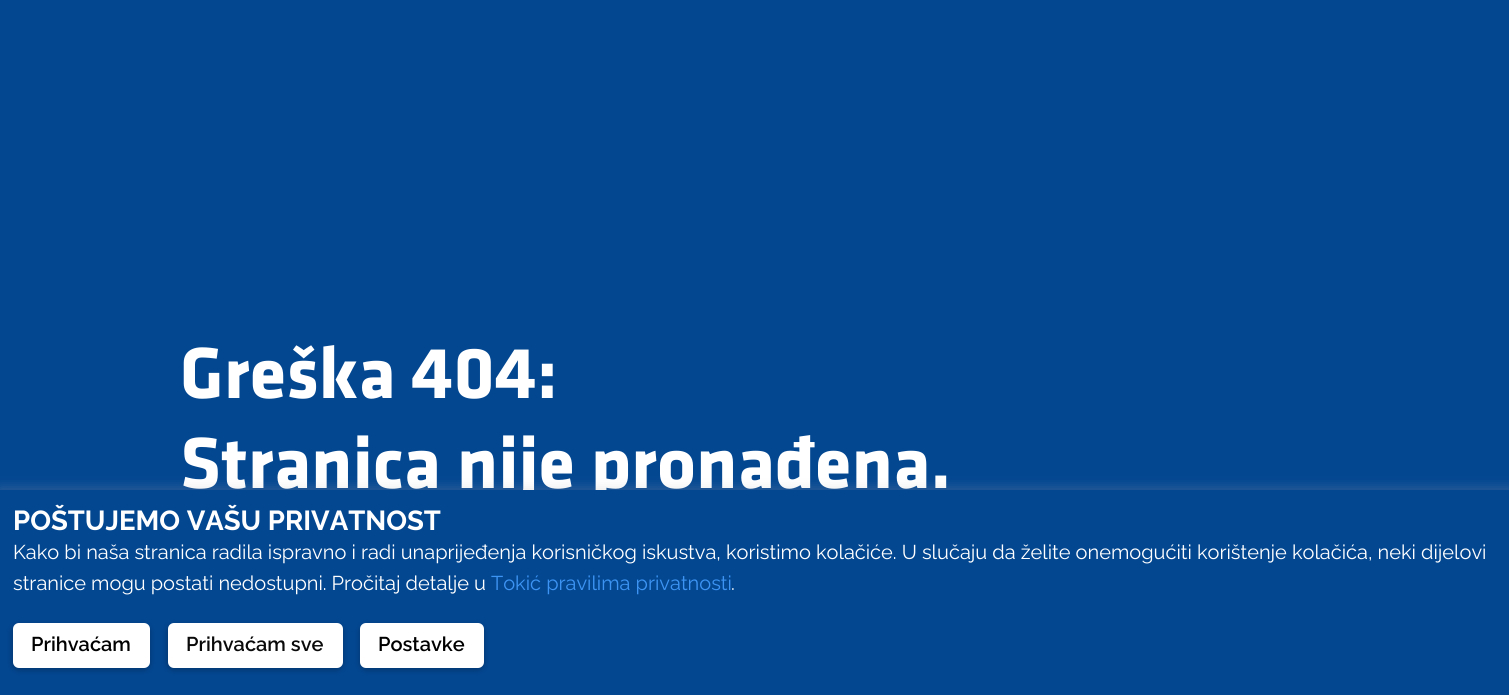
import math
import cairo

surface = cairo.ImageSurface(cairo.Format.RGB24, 1509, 695)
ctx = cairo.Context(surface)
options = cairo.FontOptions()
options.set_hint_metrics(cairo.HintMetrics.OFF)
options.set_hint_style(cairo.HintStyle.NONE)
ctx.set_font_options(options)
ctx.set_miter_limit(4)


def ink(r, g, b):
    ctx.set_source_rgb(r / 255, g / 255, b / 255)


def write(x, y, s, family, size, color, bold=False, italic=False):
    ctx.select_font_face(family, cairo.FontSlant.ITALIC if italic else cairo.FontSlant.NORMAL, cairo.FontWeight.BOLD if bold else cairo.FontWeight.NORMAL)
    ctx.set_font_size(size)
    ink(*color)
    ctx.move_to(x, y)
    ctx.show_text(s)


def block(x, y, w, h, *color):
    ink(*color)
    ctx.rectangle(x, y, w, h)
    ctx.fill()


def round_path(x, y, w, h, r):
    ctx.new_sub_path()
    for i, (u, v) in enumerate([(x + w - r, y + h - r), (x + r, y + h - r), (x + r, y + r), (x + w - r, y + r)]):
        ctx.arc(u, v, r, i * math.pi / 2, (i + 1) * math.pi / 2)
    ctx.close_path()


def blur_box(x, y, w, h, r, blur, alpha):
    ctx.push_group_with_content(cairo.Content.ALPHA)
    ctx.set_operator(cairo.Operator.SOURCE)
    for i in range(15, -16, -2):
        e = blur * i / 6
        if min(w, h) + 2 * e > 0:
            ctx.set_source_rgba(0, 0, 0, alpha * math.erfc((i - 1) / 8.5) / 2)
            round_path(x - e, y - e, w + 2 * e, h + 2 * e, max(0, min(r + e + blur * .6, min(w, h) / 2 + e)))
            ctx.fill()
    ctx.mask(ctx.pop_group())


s1 = dict(family="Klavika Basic", size=75, color=(255, 255, 255), bold=True)
s2 = dict(family="Raleway", size=27.5, color=(255, 255, 255), bold=True)
s3 = dict(family="Raleway", size=20, color=(255, 255, 255))
s4 = dict(family="Raleway", size=20, color=(61, 148, 243))
s5 = dict(family="Raleway SemiBold", size=20, color=(0, 0, 0))
s6 = dict(family="Raleway SemiBold", size=20, color=(10, 10, 10))

ink(3, 71, 145)
ctx.paint()
write(180, 398, "Greška 404:", **s1)
write(180, 488, "Stranica nije pronađena.", **s1)
ink(172, 171, 171)
blur_box(0, 489, 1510, 205, 0, 6, 0.3)
block(0, 490, 1509, 205, 3, 71, 145)
write(13, 530, "POŠTUJEMO VAŠU PRIVATNOST", **s2)
write(13, 559, "Kako bi naša stranica radila ispravno i radi unaprijeđenja korisničkog iskustva, koristimo kolačiće. U slučaju da želite onemogućiti korištenje kolačića, neki dijelovi", **s3)
write(13, 590, "stranice mogu postati nedostupni. Pročitaj detalje u", **s3)
write(491, 590, "Tokić pravilima privatnosti", **s4)
write(731, 590, ".", **s3)
ink(0, 0, 0)
blur_box(11, 624, 140, 47, 8, 2.5, 0.2)
ink(255, 255, 255)
round_path(13, 623, 137, 45, 6)
ctx.fill()
write(31, 651, "Prihvaćam", **s5)
ink(0, 0, 0)
blur_box(166, 624, 178, 47, 8, 2.5, 0.2)
ink(255, 255, 255)
round_path(168, 623, 175, 45, 6)
ctx.fill()
write(186, 651, "Prihvaćam sve", **s6)
ink(0, 0, 0)
blur_box(359, 624, 126, 47, 8, 2.5, 0.2)
ink(255, 255, 255)
round_path(360, 623, 124, 45, 6)
ctx.fill()
write(378, 651, "Postavke", **s5)
surface.write_to_png("screenshot.png")
